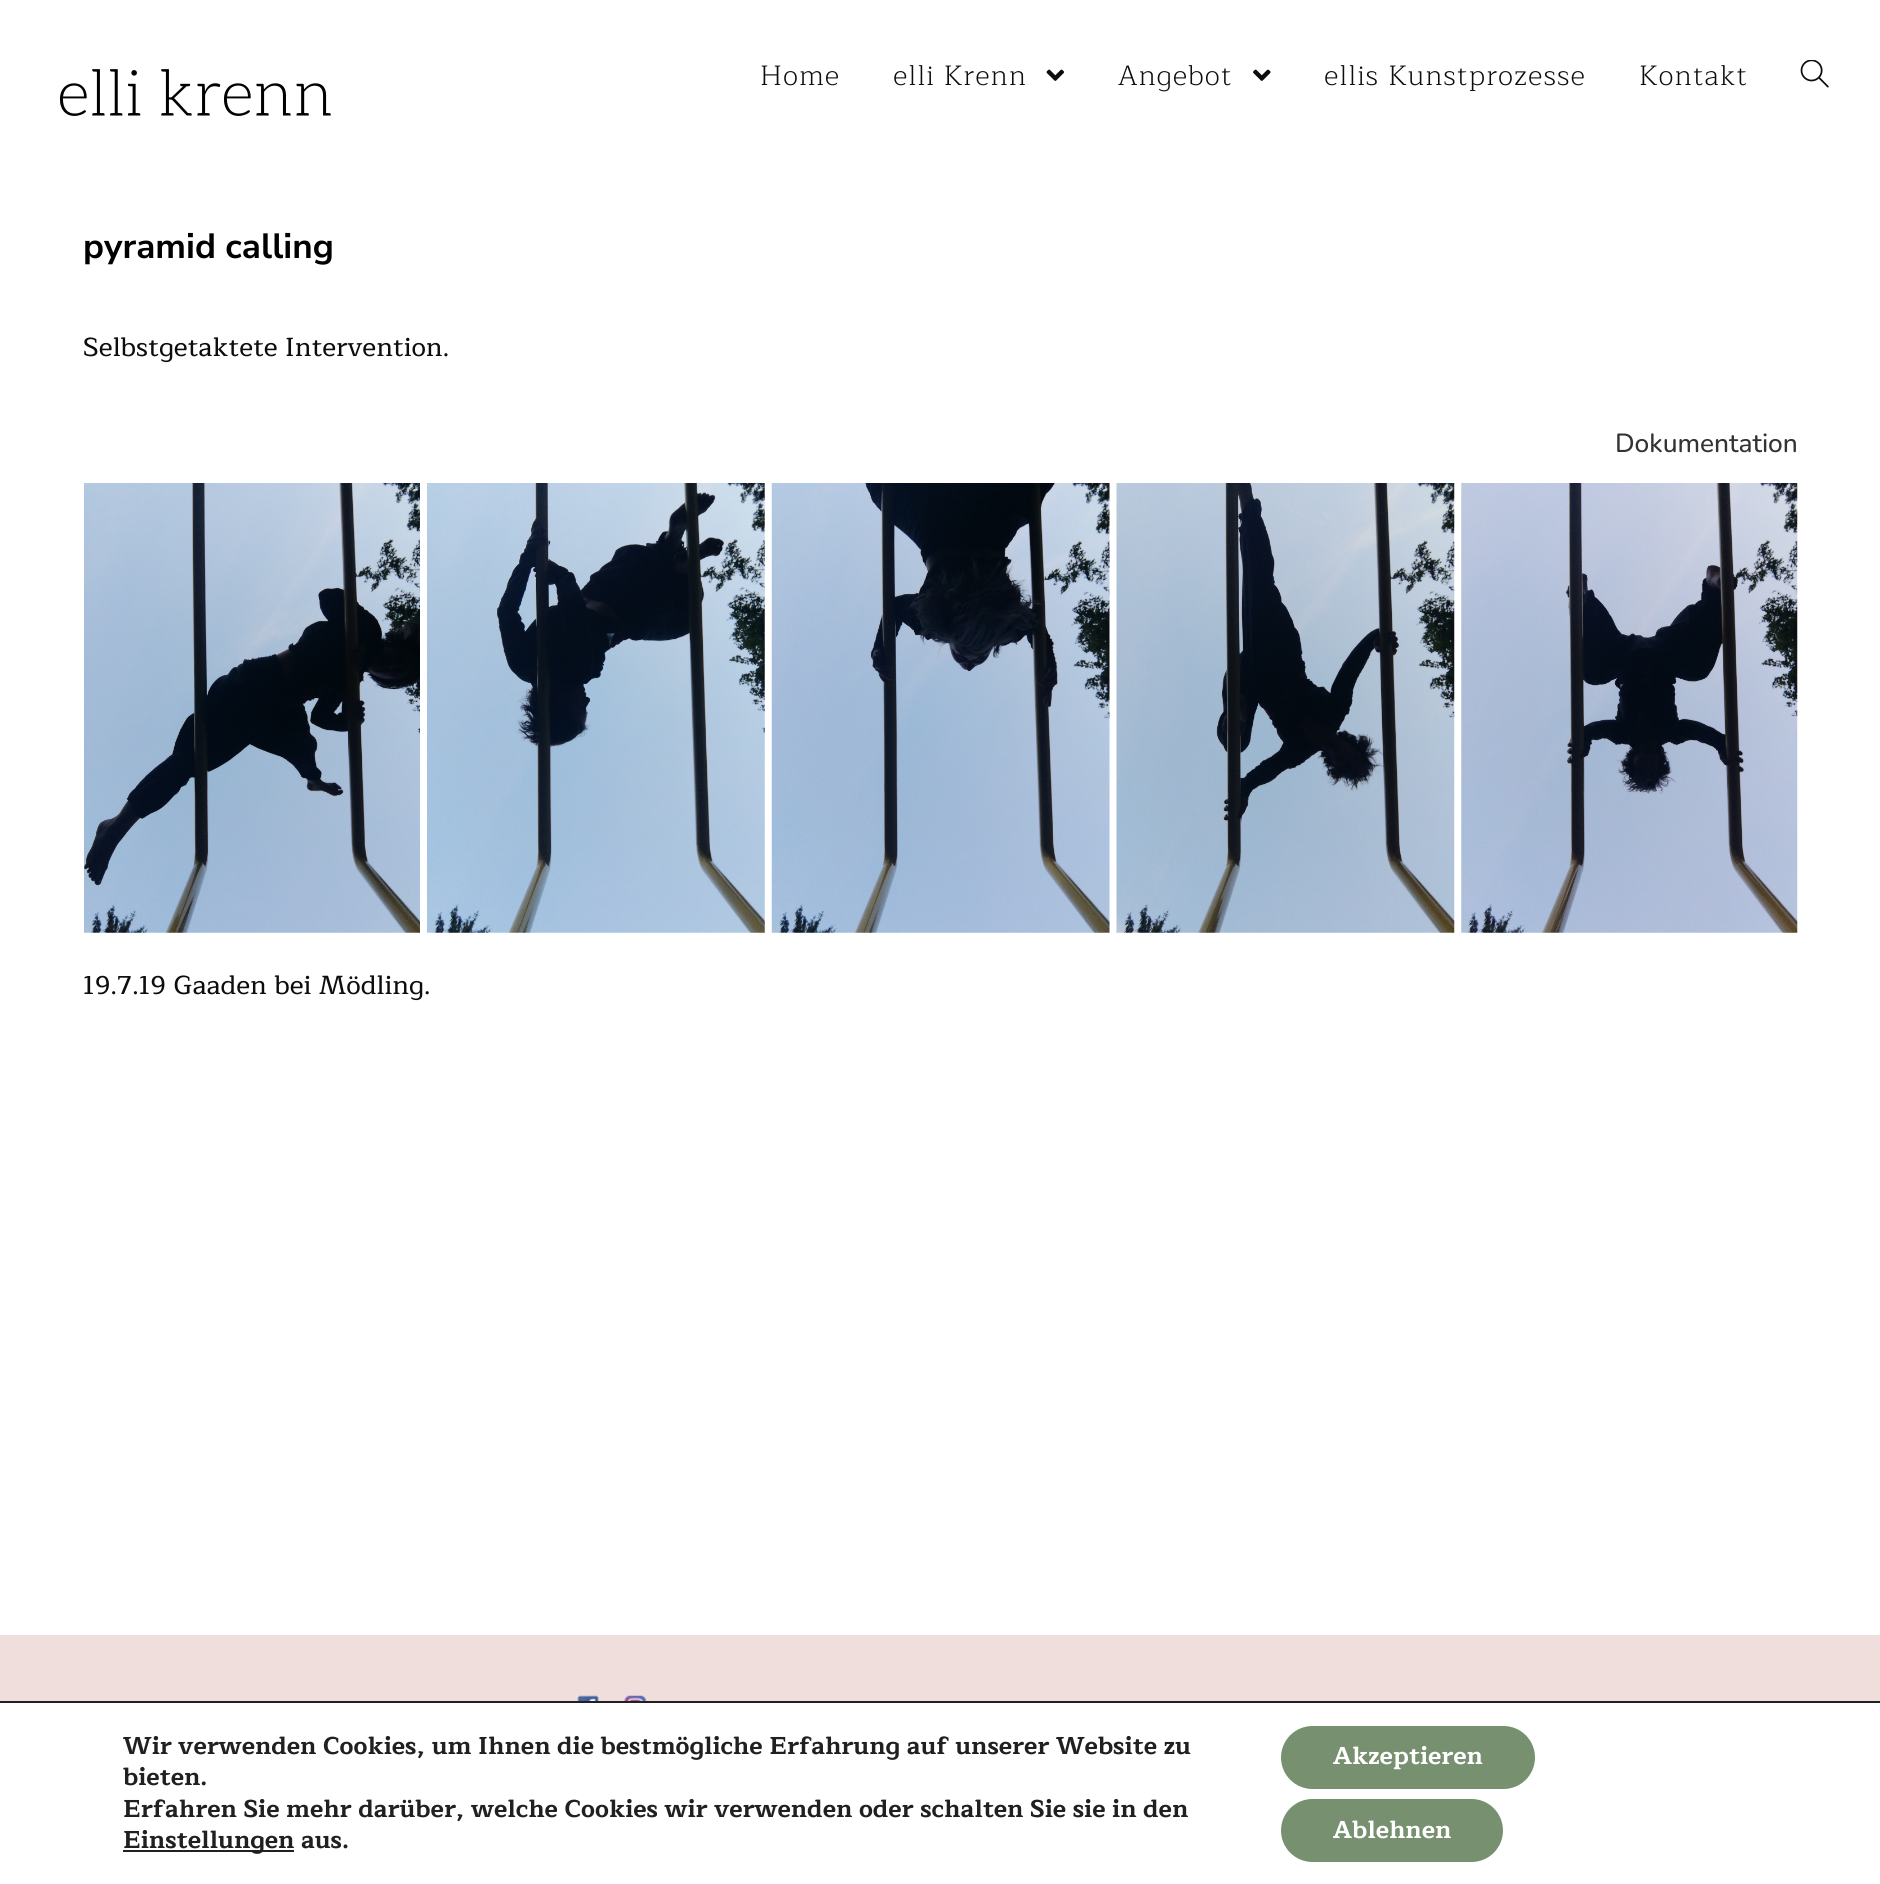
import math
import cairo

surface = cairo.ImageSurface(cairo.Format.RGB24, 1880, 1884)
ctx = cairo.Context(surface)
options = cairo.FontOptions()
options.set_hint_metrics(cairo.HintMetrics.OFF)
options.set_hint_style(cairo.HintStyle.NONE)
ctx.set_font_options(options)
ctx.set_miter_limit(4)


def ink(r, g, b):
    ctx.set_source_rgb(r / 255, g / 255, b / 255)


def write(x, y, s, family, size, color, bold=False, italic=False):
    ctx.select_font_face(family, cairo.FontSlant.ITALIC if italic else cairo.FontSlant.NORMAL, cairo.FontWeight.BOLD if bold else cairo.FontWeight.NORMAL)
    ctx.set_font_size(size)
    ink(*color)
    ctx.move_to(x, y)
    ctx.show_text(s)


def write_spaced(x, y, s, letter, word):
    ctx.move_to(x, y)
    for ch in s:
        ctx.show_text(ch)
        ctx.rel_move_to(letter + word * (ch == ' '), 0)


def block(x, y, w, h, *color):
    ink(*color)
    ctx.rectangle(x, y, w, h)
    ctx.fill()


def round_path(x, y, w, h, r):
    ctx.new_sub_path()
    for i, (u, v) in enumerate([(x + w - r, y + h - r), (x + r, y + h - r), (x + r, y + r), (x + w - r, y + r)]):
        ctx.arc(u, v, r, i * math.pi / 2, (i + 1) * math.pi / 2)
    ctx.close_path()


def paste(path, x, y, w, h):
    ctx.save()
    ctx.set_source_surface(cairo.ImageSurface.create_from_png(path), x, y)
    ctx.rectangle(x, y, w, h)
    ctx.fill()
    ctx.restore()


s1 = dict(family="Nunito Sans", size=35, color=(0, 0, 0), bold=True)
s2 = dict(family="Maitree Medium", size=26.25, color=(13, 13, 13))
s3 = dict(family="Nunito Medium", size=26.25, color=(51, 51, 51))
s4 = dict(family="Maitree", size=24.5, color=(32, 32, 32), bold=True)
s5 = dict(family="Maitree", size=24.5, color=(255, 255, 255), bold=True)

ink(255, 255, 255)
ctx.paint()
paste("pic1.png", 59, 69, 272, 47)
ctx.select_font_face("Maitree Light")
ctx.set_font_size(28)
ink(13, 13, 13)
write_spaced(760, 85, "Home", 1, 0)
write_spaced(893, 85, "elli Krenn", 1, 0)
paste("pic2.png", 1046, 69, 18, 12)
write_spaced(1118, 85, "Angebot", 1, 0)
paste("pic3.png", 1253, 69, 18, 12)
write_spaced(1324, 85, "ellis Kunstprozesse", 1, 0)
write_spaced(1639, 85, "Kontakt", 1, 0)
paste("pic4.png", 1800, 60, 29, 28)
write(83, 258, "pyramid calling", **s1)
write(83, 356, "Selbstgetaktete Intervention.", **s2)
write(1615, 452, "Dokumentation", **s3)
paste("pic5.png", 84, 483, 336, 450)
paste("pic6.png", 427, 483, 338, 450)
paste("pic7.png", 771, 483, 339, 450)
paste("pic8.png", 1116, 483, 339, 450)
paste("pic9.png", 1461, 483, 337, 450)
write(83, 994, "19.7.19 Gaaden bei Mödling.", **s2)
block(0, 1635, 1880, 66, 240, 222, 221)
paste("pic10.png", 577, 1695, 22, 6)
paste("pic11.png", 624, 1695, 23, 6)
block(0, 1701, 1880, 2, 32, 32, 32)
write(123, 1754, "Wir verwenden Cookies, um Ihnen die bestmögliche Erfahrung auf unserer Website zu", **s4)
write(123, 1785, "bieten.", **s4)
write(123, 1817, "Erfahren Sie mehr darüber, welche Cookies wir verwenden oder schalten Sie sie in den", **s4)
block(123, 1850, 171, 2, 32, 32, 32)
write(123, 1848, "Einstellungen aus.", **s4)
ink(119, 144, 112)
round_path(1281, 1726, 254, 63, 31.5)
ctx.fill()
write(1333, 1764, "Akzeptieren", **s5)
ink(119, 144, 112)
round_path(1281, 1799, 222, 63, 31.5)
ctx.fill()
write(1333, 1838, "Ablehnen", **s5)
surface.write_to_png("screenshot.png")
